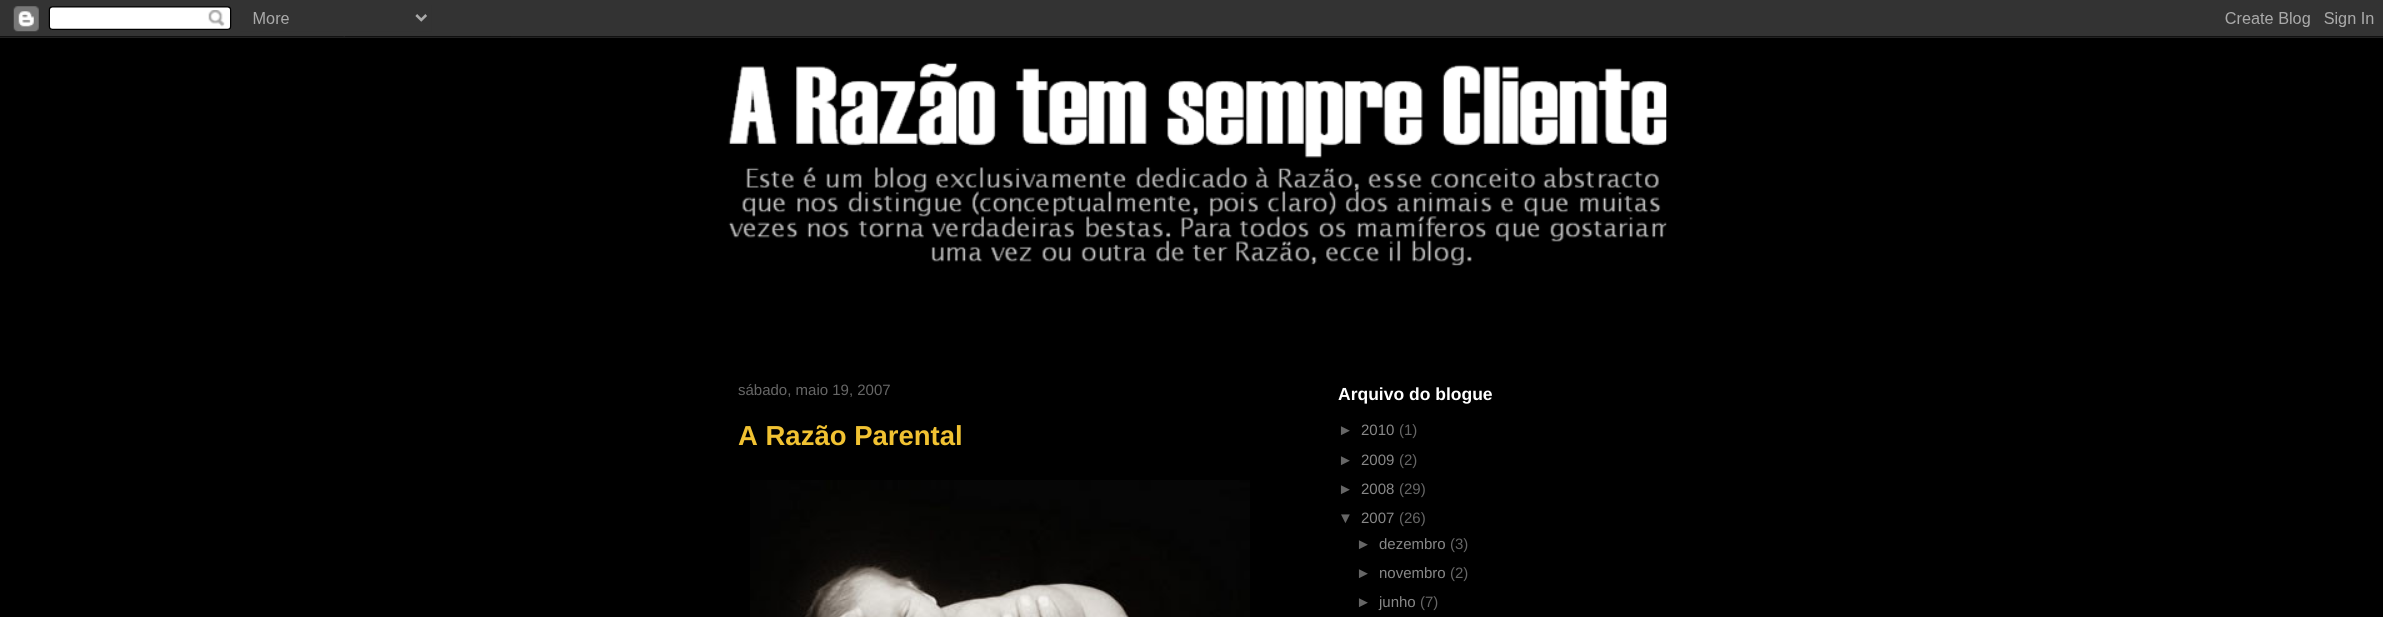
import math
import cairo

surface = cairo.ImageSurface(cairo.Format.RGB24, 2383, 617)
ctx = cairo.Context(surface)
options = cairo.FontOptions()
options.set_hint_metrics(cairo.HintMetrics.OFF)
options.set_hint_style(cairo.HintStyle.NONE)
ctx.set_font_options(options)
ctx.set_miter_limit(4)


def ink(r, g, b):
    ctx.set_source_rgb(r / 255, g / 255, b / 255)


def write(x, y, s, family, size, color, bold=False, italic=False):
    ctx.select_font_face(family, cairo.FontSlant.ITALIC if italic else cairo.FontSlant.NORMAL, cairo.FontWeight.BOLD if bold else cairo.FontWeight.NORMAL)
    ctx.set_font_size(size)
    ink(*color)
    ctx.move_to(x, y)
    ctx.show_text(s)


def paste(path, x, y, w, h):
    ctx.save()
    ctx.set_source_surface(cairo.ImageSurface.create_from_png(path), x, y)
    ctx.rectangle(x, y, w, h)
    ctx.fill()
    ctx.restore()


s1 = dict(family="Liberation Sans", size=15, color=(102, 102, 102))
s2 = dict(family="Liberation Sans", size=27.5, color=(241, 194, 50), bold=True)
s3 = dict(family="Liberation Sans", size=17.5, color=(255, 255, 255), bold=True)
s4 = dict(family="Liberation Sans", size=15, color=(136, 136, 136))

ink(0, 0, 0)
ctx.paint()
paste("pic1.png", 0, 0, 2383, 38)
paste("pic2.png", 728, 62, 939, 204)
write(738, 395, "sábado, maio 19, 2007", **s1)
write(738, 445, "A Razão Parental", **s2)
paste("pic3.png", 750, 480, 500, 137)
write(1338, 400, "Arquivo do blogue", **s3)
write(1338, 435, "►", **s1)
write(1361, 435, "2010", **s4)
write(1399, 435, "(1)", **s1)
write(1338, 465, "►", **s1)
write(1361, 465, "2009", **s4)
write(1399, 465, "(2)", **s1)
write(1338, 494, "►", **s1)
write(1361, 494, "2008", **s4)
write(1399, 494, "(29)", **s1)
write(1338, 523, "▼", **s1)
write(1361, 523, "2007", **s4)
write(1399, 523, "(26)", **s1)
write(1356, 549, "►", **s1)
write(1379, 549, "dezembro", **s4)
write(1450, 549, "(3)", **s1)
write(1356, 578, "►", **s1)
write(1379, 578, "novembro", **s4)
write(1450, 578, "(2)", **s1)
write(1356, 607, "►", **s1)
write(1379, 607, "junho", **s4)
write(1420, 607, "(7)", **s1)
surface.write_to_png("screenshot.png")
